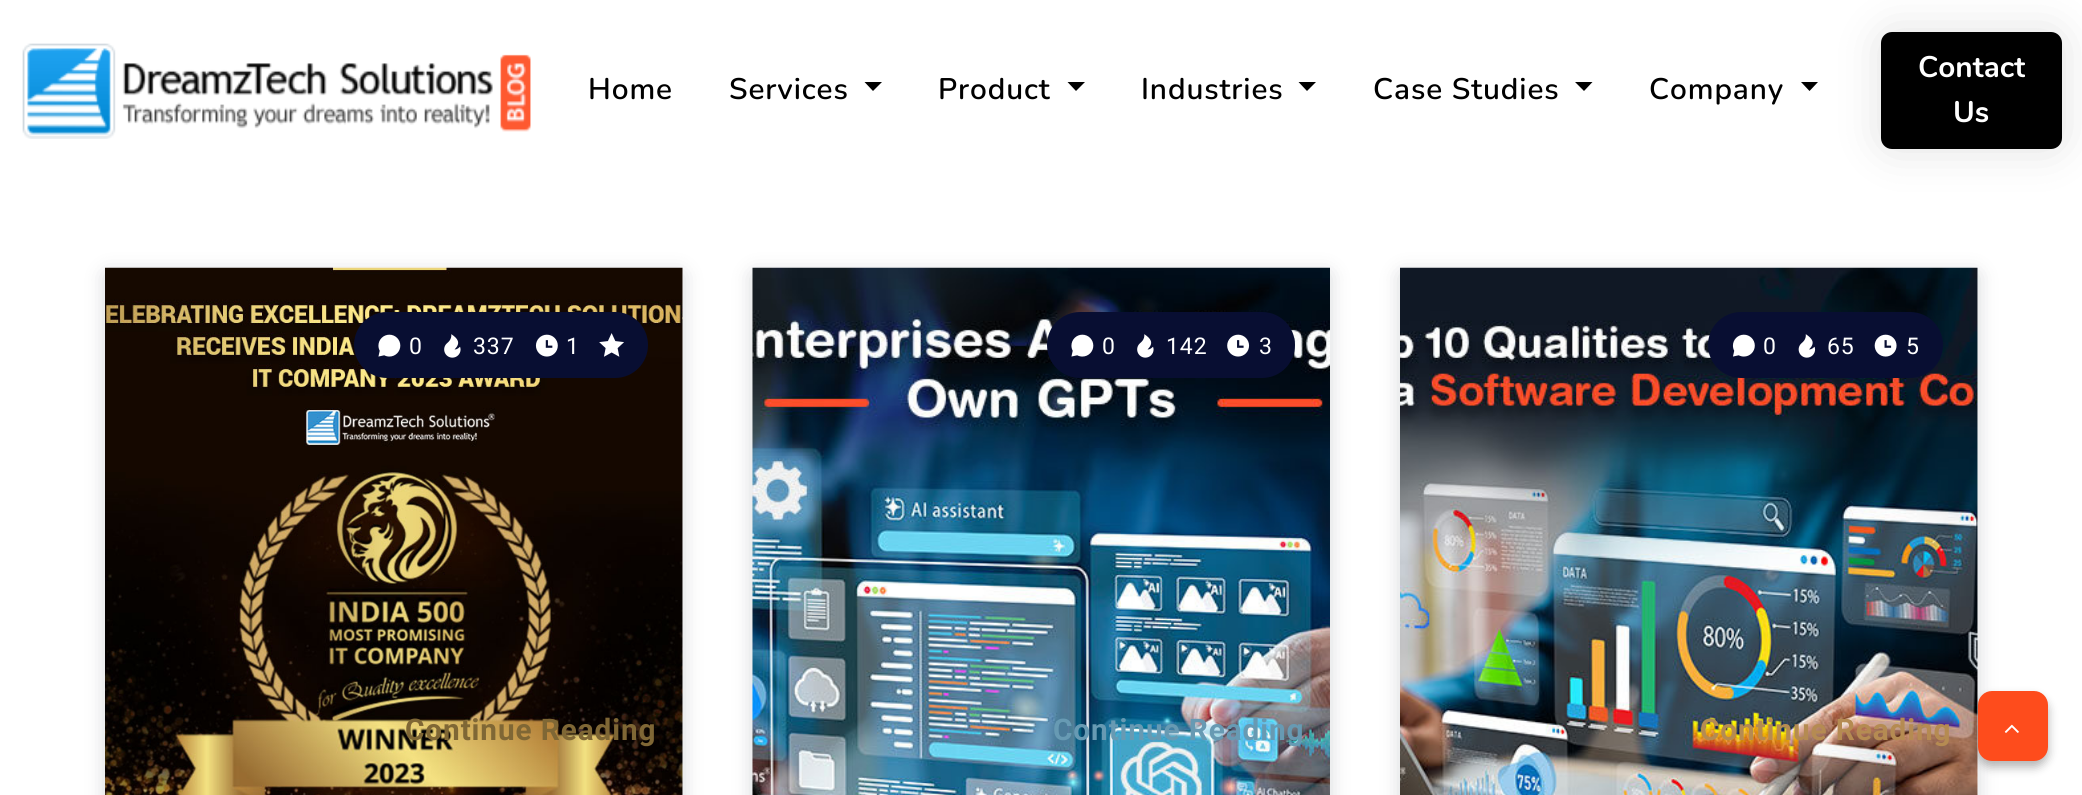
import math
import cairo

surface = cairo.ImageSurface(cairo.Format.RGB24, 2082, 795)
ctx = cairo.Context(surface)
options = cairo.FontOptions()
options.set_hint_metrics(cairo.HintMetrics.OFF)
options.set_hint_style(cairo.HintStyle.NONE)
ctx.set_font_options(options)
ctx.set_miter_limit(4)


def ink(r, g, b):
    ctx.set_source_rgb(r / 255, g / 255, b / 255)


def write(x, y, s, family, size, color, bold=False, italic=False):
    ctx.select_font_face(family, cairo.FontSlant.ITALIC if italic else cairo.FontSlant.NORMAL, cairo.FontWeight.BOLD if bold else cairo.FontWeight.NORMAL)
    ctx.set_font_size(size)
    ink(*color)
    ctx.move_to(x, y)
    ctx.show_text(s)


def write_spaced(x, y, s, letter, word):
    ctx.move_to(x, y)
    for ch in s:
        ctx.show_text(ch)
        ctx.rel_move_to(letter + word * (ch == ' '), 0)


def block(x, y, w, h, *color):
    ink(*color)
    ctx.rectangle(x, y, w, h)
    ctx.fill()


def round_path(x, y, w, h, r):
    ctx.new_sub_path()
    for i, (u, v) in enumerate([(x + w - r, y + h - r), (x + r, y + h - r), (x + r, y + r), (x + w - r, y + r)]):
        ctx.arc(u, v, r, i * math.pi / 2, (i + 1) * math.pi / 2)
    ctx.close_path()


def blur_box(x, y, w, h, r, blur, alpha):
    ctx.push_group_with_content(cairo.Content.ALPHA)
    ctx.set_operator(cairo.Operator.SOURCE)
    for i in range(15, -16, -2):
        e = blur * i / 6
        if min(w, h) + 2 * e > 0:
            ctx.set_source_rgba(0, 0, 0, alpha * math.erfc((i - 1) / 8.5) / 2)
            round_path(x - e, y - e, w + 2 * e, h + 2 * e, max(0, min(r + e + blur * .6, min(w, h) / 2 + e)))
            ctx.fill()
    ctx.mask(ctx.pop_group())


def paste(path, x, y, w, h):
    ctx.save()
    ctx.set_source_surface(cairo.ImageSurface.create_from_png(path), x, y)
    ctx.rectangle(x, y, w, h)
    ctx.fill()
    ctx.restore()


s1 = dict(family="Nunito", size=29.75, color=(255, 255, 255), bold=True)

ink(255, 255, 255)
ctx.paint()
paste("pic1.png", 22, 43, 509, 96)
ctx.select_font_face("Nunito SemiBold")
ctx.set_font_size(29.75)
ink(0, 0, 0)
write_spaced(588, 99, "Home", 0.9, 0)
write_spaced(729, 99, "Services", 0.9, 0)
ctx.new_path()
ctx.move_to(864.5, 82)
ctx.line_to(882, 82)
ctx.line_to(873, 91)
ctx.close_path()
ctx.fill()
write_spaced(938, 99, "Product", 0.9, 0)
ctx.new_path()
ctx.move_to(1067.5, 82)
ctx.line_to(1085, 82)
ctx.line_to(1076, 91)
ctx.close_path()
ctx.fill()
write_spaced(1141, 99, "Industries", 0.9, 0)
ctx.new_path()
ctx.move_to(1298.5, 82)
ctx.line_to(1316, 82)
ctx.line_to(1307, 91)
ctx.close_path()
ctx.fill()
write_spaced(1373, 99, "Case Studies", 0.9, 0)
ctx.new_path()
ctx.move_to(1575, 82)
ctx.line_to(1592.5, 82)
ctx.line_to(1584, 91)
ctx.close_path()
ctx.fill()
write_spaced(1649, 99, "Company", 0.9, 0)
ctx.new_path()
ctx.move_to(1801, 82)
ctx.line_to(1818, 82)
ctx.line_to(1809.5, 91)
ctx.close_path()
ctx.fill()
ink(0, 0, 0)
blur_box(1881, 32, 181, 117, 11, 23.5, 0.12)
ink(0, 0, 0)
round_path(1881, 32, 181, 117, 11)
ctx.fill()
write(1918, 77, "Contact", **s1)
write(1953, 122, "Us", **s1)
ink(7, 10, 25)
blur_box(107, 275, 574, 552, 0, 10.5, 0.2)
block(682, 268, 1, 527, 249, 249, 249)
paste("pic6.png", 105, 267, 578, 528)
ink(8, 14, 50)
round_path(354, 312, 294, 66, 33)
ctx.fill()
paste("pic2.png", 378, 334, 23, 23)
ctx.select_font_face("Roboto")
ctx.set_font_size(23)
ink(255, 255, 255)
write_spaced(409, 354, "0", 0.9, 0)
paste("pic3.png", 444, 334, 17, 24)
write_spaced(473, 354, "337", 0.9, 0)
paste("pic4.png", 535, 334, 23, 23)
write_spaced(566, 354, "1", 0.9, 0)
paste("pic5.png", 599, 333, 25, 24)
ctx.select_font_face("Roboto", cairo.FontSlant.NORMAL, cairo.FontWeight.BOLD)
ctx.set_font_size(29.75)
ink(127, 103, 53)
write_spaced(405, 740, "Continue Reading", 0.9, 0)
ink(7, 10, 25)
blur_box(754, 275, 574, 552, 0, 10.5, 0.2)
paste("pic8.png", 752, 267, 578, 528)
ink(8, 14, 50)
round_path(1047, 312, 248, 66, 33)
ctx.fill()
paste("pic2.png", 1071, 334, 23, 23)
ctx.select_font_face("Roboto")
ctx.set_font_size(23)
ink(255, 255, 255)
write_spaced(1102, 354, "0", 0.9, 0)
paste("pic3.png", 1137, 334, 17, 24)
write_spaced(1166, 354, "142", 0.9, 0)
paste("pic7.png", 1227, 334, 23, 23)
write_spaced(1259, 354, "3", 0.9, 0)
ctx.select_font_face("Roboto", cairo.FontSlant.NORMAL, cairo.FontWeight.BOLD)
ctx.set_font_size(29.75)
ink(103, 154, 179)
write_spaced(1053, 740, "Continue Reading", 0.9, 0)
ink(7, 10, 25)
blur_box(1402, 275, 574, 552, 0, 10.5, 0.2)
block(1977, 268, 1, 527, 249, 249, 249)
paste("pic12.png", 1400, 267, 578, 528)
ink(8, 14, 50)
round_path(1708, 312, 235, 66, 33)
ctx.fill()
paste("pic9.png", 1732, 334, 23, 23)
ctx.select_font_face("Roboto")
ctx.set_font_size(23)
ink(255, 255, 255)
write_spaced(1763, 354, "0", 0.9, 0)
paste("pic10.png", 1798, 334, 18, 24)
write_spaced(1827, 354, "65", 0.9, 0)
paste("pic11.png", 1874, 334, 23, 23)
write_spaced(1906, 354, "5", 0.9, 0)
ctx.select_font_face("Roboto", cairo.FontSlant.NORMAL, cairo.FontWeight.BOLD)
ctx.set_font_size(29.75)
ink(181, 139, 82)
write_spaced(1700, 740, "Continue Reading", 0.9, 0)
ink(0, 0, 0)
blur_box(1978, 697, 70, 70, 14, 5, 0.3)
ink(254, 76, 28)
round_path(1978, 691, 70, 70, 14)
ctx.fill()
paste("pic13.png", 2004, 724, 15, 9)
surface.write_to_png("screenshot.png")
